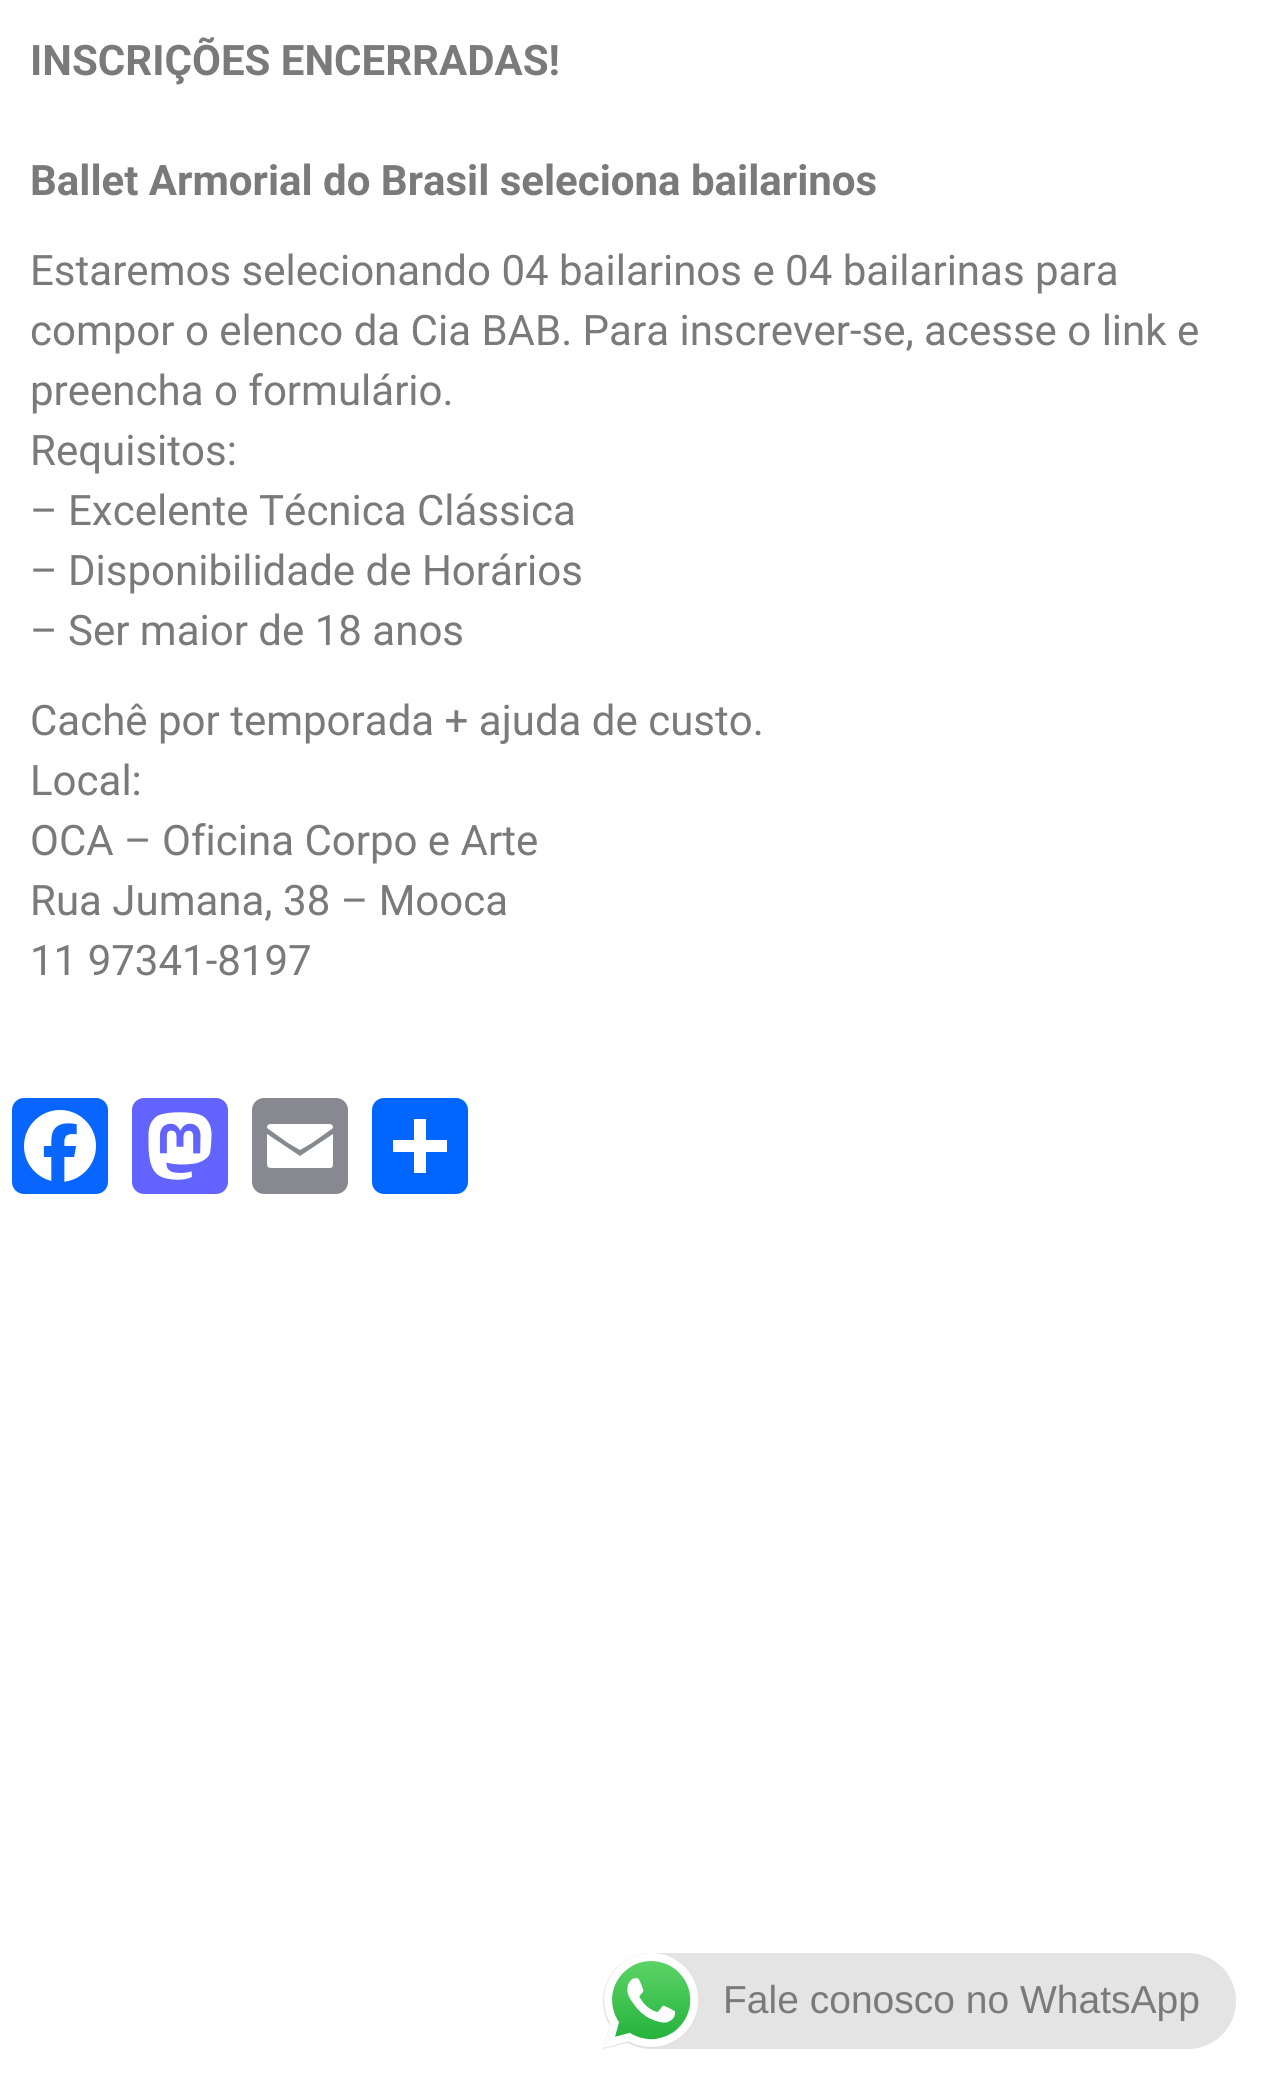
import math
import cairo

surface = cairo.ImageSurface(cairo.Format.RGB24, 1265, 2078)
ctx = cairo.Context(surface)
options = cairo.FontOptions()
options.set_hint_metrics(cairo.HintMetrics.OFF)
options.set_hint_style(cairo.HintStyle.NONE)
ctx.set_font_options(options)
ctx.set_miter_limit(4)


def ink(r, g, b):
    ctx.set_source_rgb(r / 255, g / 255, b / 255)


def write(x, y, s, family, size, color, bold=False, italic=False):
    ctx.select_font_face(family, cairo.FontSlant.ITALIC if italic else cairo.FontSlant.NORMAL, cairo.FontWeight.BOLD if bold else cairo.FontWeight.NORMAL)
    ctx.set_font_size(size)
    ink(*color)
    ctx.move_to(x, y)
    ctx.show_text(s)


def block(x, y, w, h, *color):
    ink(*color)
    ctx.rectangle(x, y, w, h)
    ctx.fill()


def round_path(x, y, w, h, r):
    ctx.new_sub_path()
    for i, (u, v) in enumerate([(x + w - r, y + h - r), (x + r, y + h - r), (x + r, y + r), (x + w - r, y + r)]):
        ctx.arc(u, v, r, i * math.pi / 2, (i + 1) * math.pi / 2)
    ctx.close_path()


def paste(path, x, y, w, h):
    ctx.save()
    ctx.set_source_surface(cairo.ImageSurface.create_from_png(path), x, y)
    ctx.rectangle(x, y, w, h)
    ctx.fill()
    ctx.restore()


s1 = dict(family="Roboto", size=42, color=(122, 122, 122), bold=True)
s2 = dict(family="Roboto", size=42, color=(122, 122, 122))
s3 = dict(family="Liberation Sans", size=39, color=(122, 122, 122))

ink(255, 255, 255)
ctx.paint()
write(30, 75, "INSCRIÇÕES ENCERRADAS!", **s1)
write(30, 195, "Ballet Armorial do Brasil seleciona bailarinos", **s1)
write(30, 285, "Estaremos selecionando 04 bailarinos e 04 bailarinas para", **s2)
write(30, 345, "compor o elenco da Cia BAB. Para inscrever-se, acesse o link e", **s2)
write(30, 405, "preencha o formulário.", **s2)
write(30, 465, "Requisitos:", **s2)
write(30, 525, "– Excelente Técnica Clássica", **s2)
write(30, 585, "– Disponibilidade de Horários", **s2)
write(30, 645, "– Ser maior de 18 anos", **s2)
write(30, 735, "Cachê por temporada + ajuda de custo.", **s2)
write(30, 795, "Local:", **s2)
write(30, 855, "OCA – Oficina Corpo e Arte", **s2)
write(30, 915, "Rua Jumana, 38 – Mooca", **s2)
write(30, 975, "11 97341-8197", **s2)
ink(8, 102, 255)
round_path(12, 1098, 96, 96, 12)
ctx.fill()
paste("pic1.png", 24, 1110, 72, 72)
ink(99, 100, 255)
round_path(132, 1098, 96, 96, 12)
ctx.fill()
paste("pic2.png", 148, 1112, 64, 68)
ink(136, 137, 144)
round_path(252, 1098, 96, 96, 12)
ctx.fill()
ink(255, 255, 255)
ctx.new_path()
ctx.move_to(333, 1163)
ctx.line_to(333, 1134)
ctx.line_to(300, 1156)
ctx.line_to(267, 1134)
ctx.line_to(267, 1163)
ctx.curve_to(267, 1167, 268, 1168, 272, 1168)
ctx.line_to(328, 1168)
ctx.curve_to(332, 1168, 333, 1168, 333, 1163)
ctx.move_to(333, 1128)
ctx.curve_to(333, 1125, 332, 1124, 328, 1124)
ctx.line_to(272, 1124)
ctx.curve_to(268, 1124, 267, 1125, 267, 1128)
ctx.line_to(288, 1143)
ctx.line_to(300, 1150)
ctx.line_to(312, 1143)
ctx.close_path()
ctx.fill()
ink(1, 102, 255)
round_path(372, 1098, 96, 96, 12)
ctx.fill()
block(414, 1119, 12, 54, 255, 255, 255)
block(393, 1140, 54, 12, 255, 255, 255)
ink(228, 228, 228)
round_path(603, 1953, 633, 96, 48)
ctx.fill()
paste("pic3.png", 603, 1953, 95, 96)
write(723, 2013, "Fale conosco no WhatsApp", **s3)
surface.write_to_png("screenshot.png")
